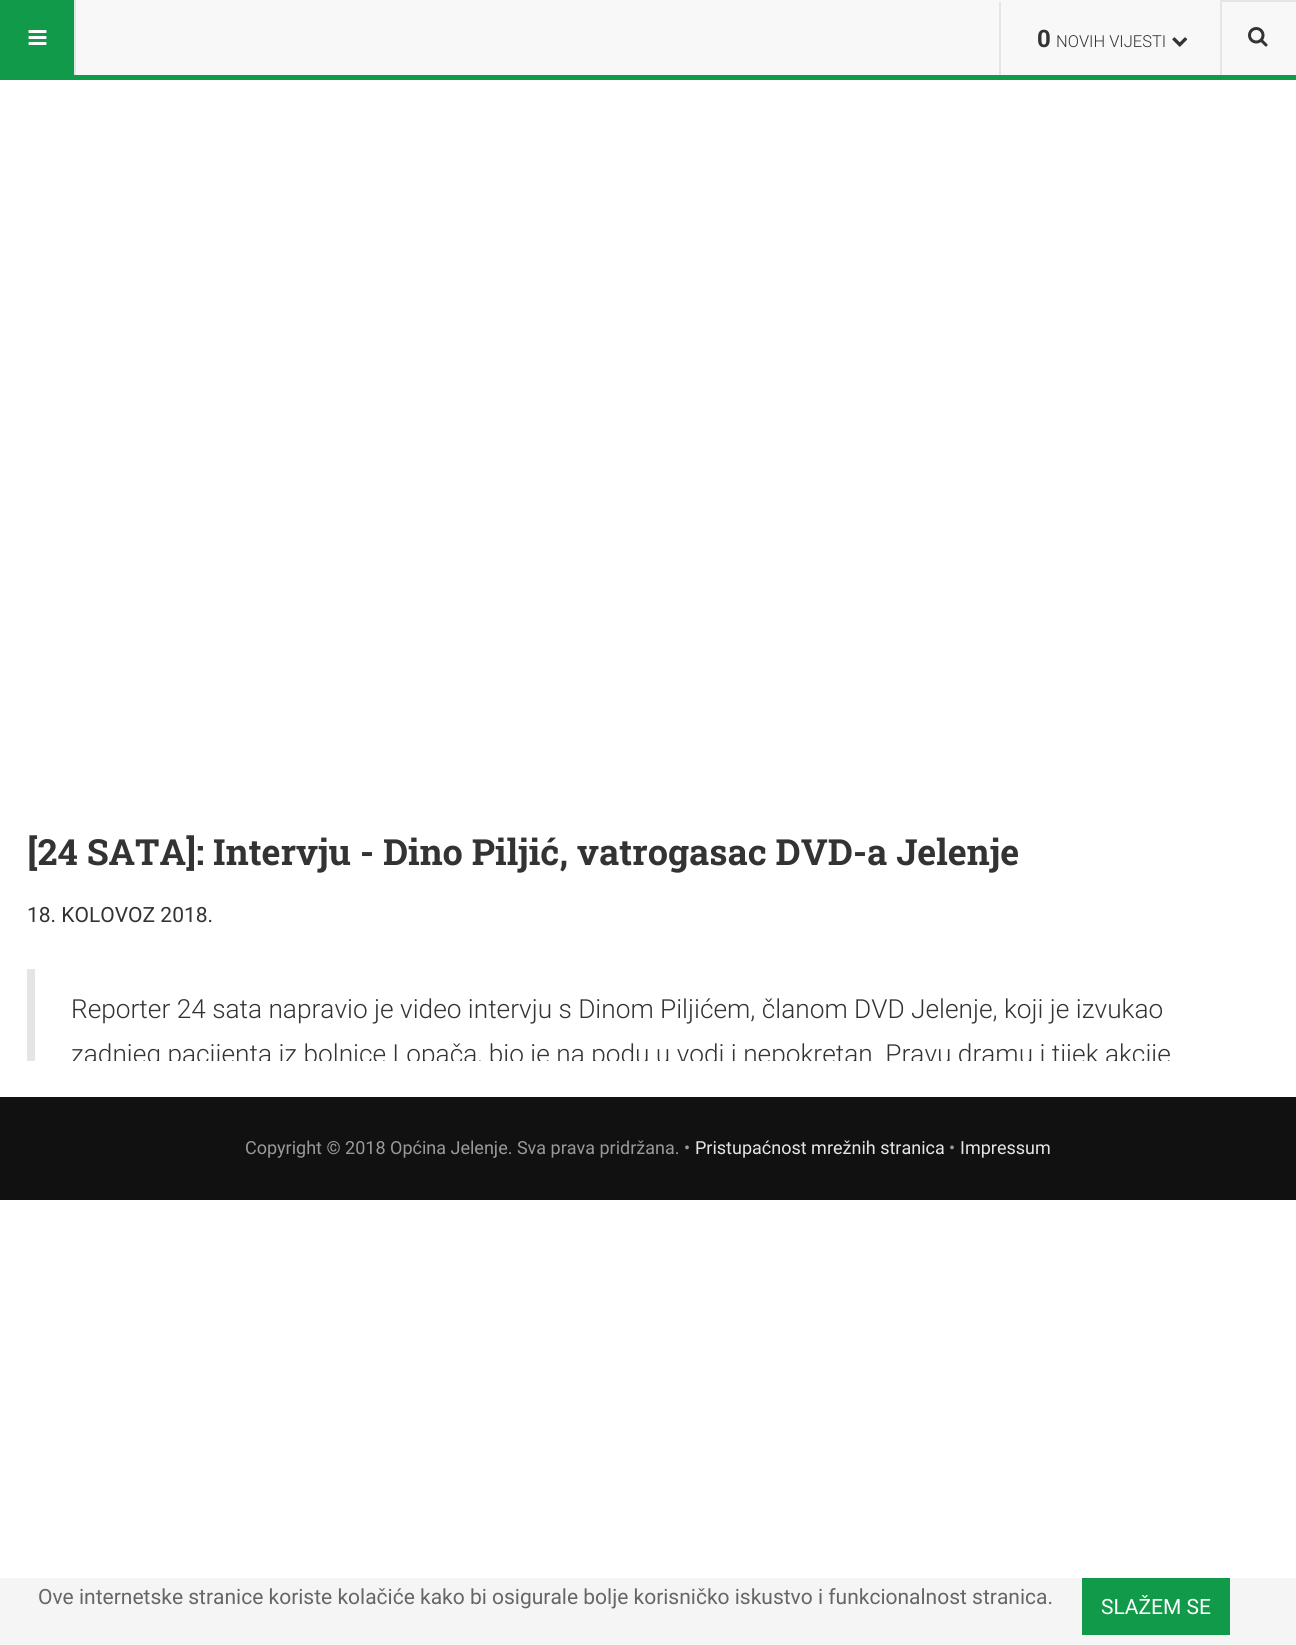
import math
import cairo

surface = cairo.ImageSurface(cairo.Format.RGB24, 1296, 1645)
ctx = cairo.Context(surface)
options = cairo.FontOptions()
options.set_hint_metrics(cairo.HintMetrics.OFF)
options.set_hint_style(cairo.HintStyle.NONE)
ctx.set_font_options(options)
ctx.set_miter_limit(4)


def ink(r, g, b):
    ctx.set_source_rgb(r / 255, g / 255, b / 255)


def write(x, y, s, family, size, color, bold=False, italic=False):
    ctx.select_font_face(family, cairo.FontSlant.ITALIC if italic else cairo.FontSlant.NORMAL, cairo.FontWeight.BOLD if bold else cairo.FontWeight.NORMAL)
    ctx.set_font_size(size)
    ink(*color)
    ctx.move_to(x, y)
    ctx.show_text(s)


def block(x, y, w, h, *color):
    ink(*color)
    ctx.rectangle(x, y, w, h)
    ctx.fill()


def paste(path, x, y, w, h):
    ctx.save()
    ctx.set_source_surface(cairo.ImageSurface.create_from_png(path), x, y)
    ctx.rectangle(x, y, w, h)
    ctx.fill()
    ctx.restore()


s1 = dict(family="Roboto", size=24, color=(51, 51, 51), bold=True)
s2 = dict(family="Roboto Light", size=16.5, color=(51, 51, 51))
s3 = dict(family="Roboto Slab", size=36, color=(51, 51, 51), bold=True)
s4 = dict(family="Roboto", size=21, color=(51, 51, 51))
s5 = dict(family="Roboto Light", size=26.25, color=(51, 51, 51))
s6 = dict(family="Roboto", size=18, color=(153, 153, 153))
s7 = dict(family="Roboto", size=18, color=(229, 229, 229))
s8 = dict(family="Roboto", size=21, color=(102, 102, 102))
s9 = dict(family="Roboto", size=21, color=(255, 255, 255))

ink(255, 255, 255)
ctx.paint()
block(76, 0, 1220, 75, 248, 248, 248)
block(0, 75, 1296, 5, 16, 154, 73)
block(0, 0, 74, 75, 16, 154, 73)
block(74, 0, 2, 75, 229, 229, 229)
paste("pic1.png", 28, 30, 19, 15)
block(999, 2, 2, 73, 229, 229, 229)
write(1037, 47, "0", **s1)
write(1056, 47, "NOVIH VIJESTI", **s2)
paste("pic2.png", 1172, 37, 16, 10)
block(1221, 0, 75, 2, 229, 229, 229)
block(1220, 0, 2, 75, 229, 229, 229)
paste("pic3.png", 1248, 27, 20, 20)
write(27, 865, "[24 SATA]: Intervju - Dino Piljić, vatrogasac DVD-a Jelenje", **s3)
write(27, 922, "18. KOLOVOZ 2018.", **s4)
block(27, 969, 8, 92, 229, 229, 229)
write(71, 1018, "Reporter 24 sata napravio je video intervju s Dinom Piljićem, članom DVD Jelenje, koji je izvukao", **s5)
ctx.save()
ctx.rectangle(27, 969, 1242, 92)
ctx.clip()
write(71, 1063, "zadnjeg pacijenta iz bolnice Lopača, bio je na podu u vodi i nepokretan. Pravu dramu i tijek akcije", **s5)
ctx.restore()
block(0, 1097, 1296, 103, 17, 17, 17)
write(245, 1154, "Copyright © 2018 Općina Jelenje. Sva prava pridržana. •", **s6)
write(695, 1154, "Pristupaćnost mrežnih stranica", **s7)
write(949, 1154, "•", **s6)
write(960, 1154, "Impressum", **s7)
block(0, 1578, 1296, 67, 245, 245, 245)
write(38, 1604, "Ove internetske stranice koriste kolačiće kako bi osigurale bolje korisničko iskustvo i funkcionalnost stranica.", **s8)
block(1082, 1578, 148, 57, 16, 154, 73)
write(1101, 1614, "SLAŽEM SE", **s9)
surface.write_to_png("screenshot.png")
